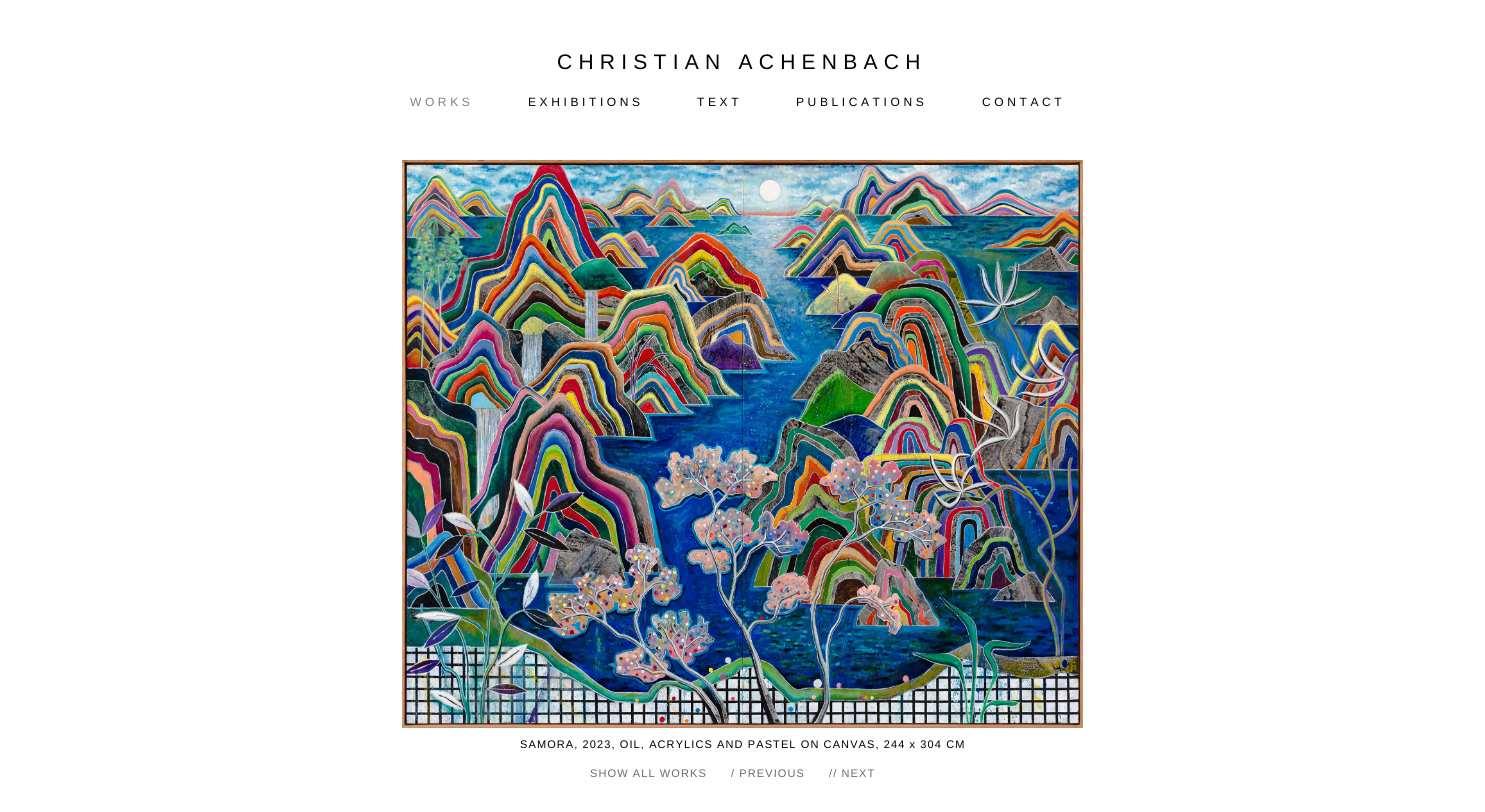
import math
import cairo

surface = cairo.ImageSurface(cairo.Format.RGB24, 1485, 812)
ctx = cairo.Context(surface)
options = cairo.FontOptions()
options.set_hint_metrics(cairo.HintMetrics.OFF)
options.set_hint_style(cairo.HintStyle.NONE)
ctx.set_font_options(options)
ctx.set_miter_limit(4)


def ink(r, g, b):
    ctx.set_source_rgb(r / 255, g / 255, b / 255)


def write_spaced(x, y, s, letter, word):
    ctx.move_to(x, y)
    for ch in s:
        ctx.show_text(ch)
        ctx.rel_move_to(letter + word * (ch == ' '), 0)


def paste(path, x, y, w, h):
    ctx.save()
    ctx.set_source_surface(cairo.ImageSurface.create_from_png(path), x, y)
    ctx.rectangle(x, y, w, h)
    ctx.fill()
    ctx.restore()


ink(255, 255, 255)
ctx.paint()
ctx.select_font_face("Arimo")
ctx.set_font_size(21)
ink(0, 0, 0)
write_spaced(557, 69, "CHRISTIAN ACHENBACH", 6.25, 0)
ctx.select_font_face("Liberation Sans")
ctx.set_font_size(12)
ink(128, 128, 128)
write_spaced(410, 106, "WORKS", 3.6, 0)
ink(0, 0, 0)
write_spaced(528, 106, "EXHIBITIONS", 3.6, 0)
write_spaced(697, 106, "TEXT", 3.6, 0)
write_spaced(796, 106, "PUBLICATIONS", 3.6, 0)
write_spaced(982, 106, "CONTACT", 3.6, 0)
paste("pic1.png", 402, 160, 681, 568)
ctx.set_font_size(11)
write_spaced(520, 748, "SAMORA, 2023, OIL, ACRYLICS AND PASTEL ON CANVAS, 244 x 304 CM", 1.1, 0)
ink(109, 107, 107)
write_spaced(590, 777, "SHOW ALL WORKS", 1.1, 0)
write_spaced(731, 777, "/ PREVIOUS", 1.1, 0)
write_spaced(829, 777, "// NEXT", 1.1, 0)
surface.write_to_png("screenshot.png")
